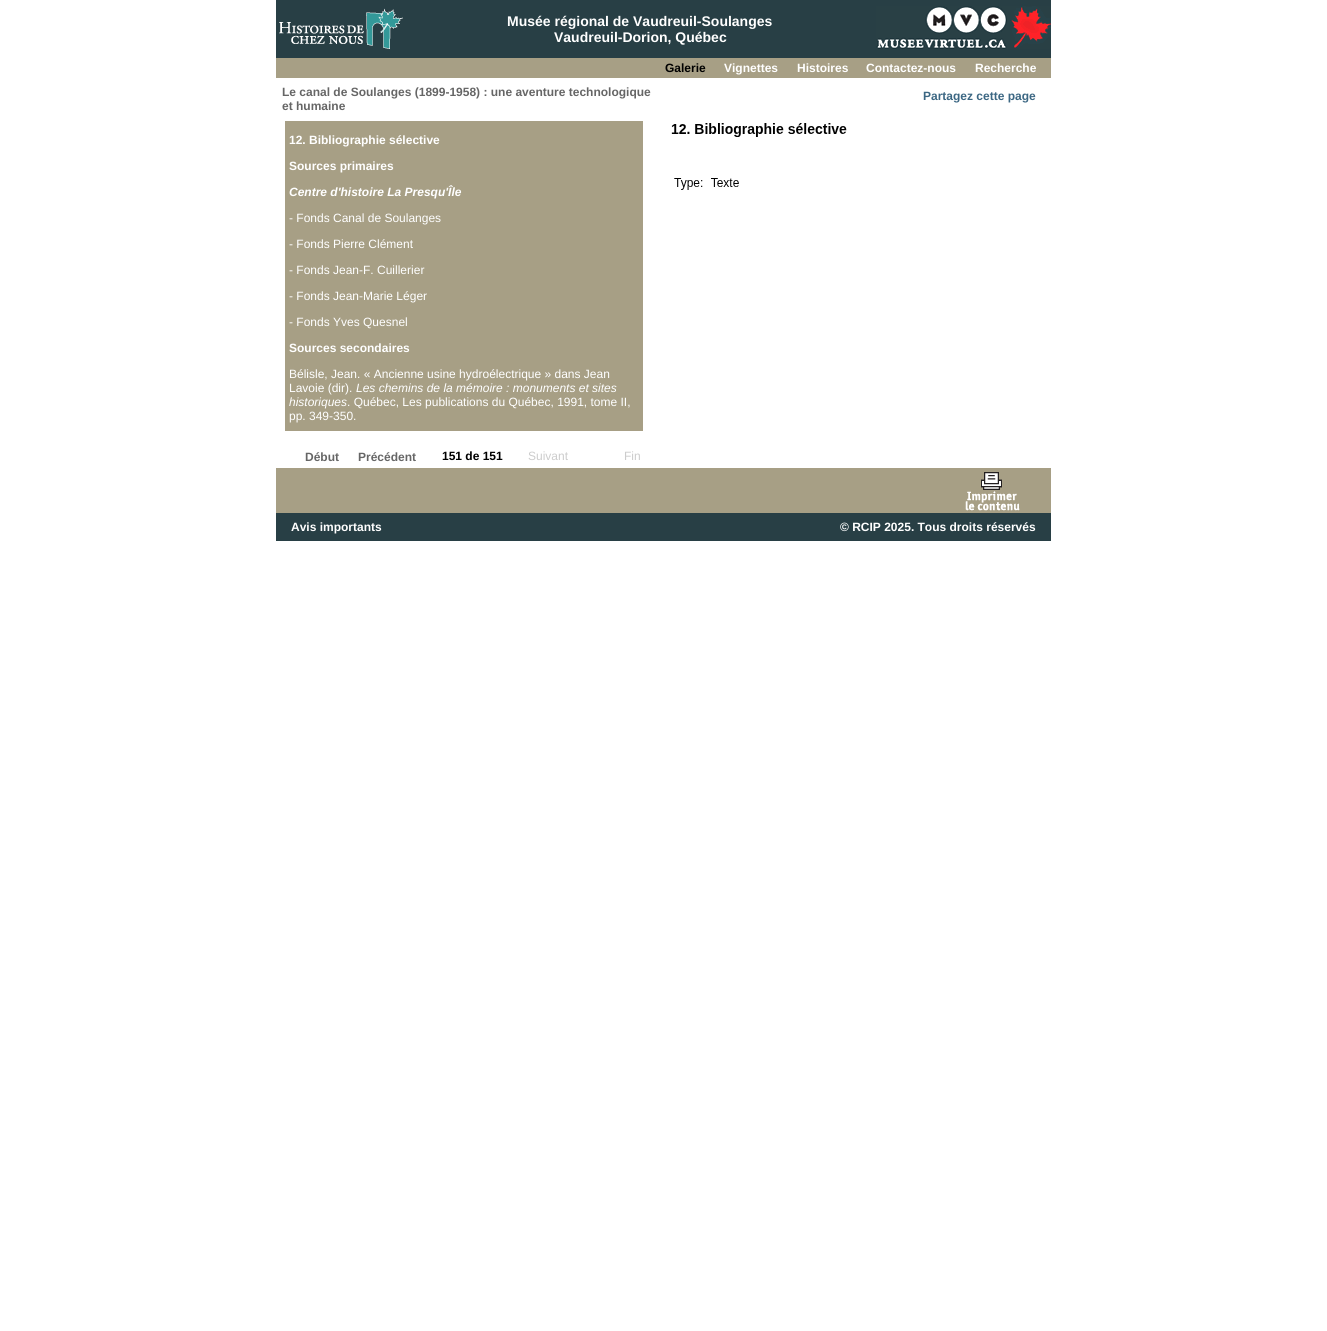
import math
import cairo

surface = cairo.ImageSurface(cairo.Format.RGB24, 1327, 1331)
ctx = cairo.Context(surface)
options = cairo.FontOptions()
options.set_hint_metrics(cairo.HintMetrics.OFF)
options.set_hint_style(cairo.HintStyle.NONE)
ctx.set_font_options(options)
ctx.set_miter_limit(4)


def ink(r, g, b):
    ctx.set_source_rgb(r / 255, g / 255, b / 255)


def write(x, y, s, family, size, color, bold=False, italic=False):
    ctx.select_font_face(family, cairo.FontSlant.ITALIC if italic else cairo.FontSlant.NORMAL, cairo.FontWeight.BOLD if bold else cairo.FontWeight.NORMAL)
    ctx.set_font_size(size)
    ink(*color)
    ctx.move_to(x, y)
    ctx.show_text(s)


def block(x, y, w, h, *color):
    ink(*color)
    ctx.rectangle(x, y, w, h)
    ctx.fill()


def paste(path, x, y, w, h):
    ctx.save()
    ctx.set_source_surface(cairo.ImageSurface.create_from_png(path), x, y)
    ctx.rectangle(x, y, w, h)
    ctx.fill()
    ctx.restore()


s1 = dict(family="Liberation Sans", size=14, color=(255, 255, 255), bold=True)
s2 = dict(family="Liberation Sans", size=12, color=(0, 0, 0), bold=True)
s3 = dict(family="Liberation Sans", size=12, color=(255, 255, 255), bold=True)
s4 = dict(family="Liberation Sans", size=12, color=(102, 102, 102), bold=True)
s5 = dict(family="Liberation Sans", size=12, color=(60, 103, 131), bold=True)
s6 = dict(family="Liberation Sans", size=12, color=(255, 255, 255), bold=True, italic=True)
s7 = dict(family="Liberation Sans", size=12, color=(255, 255, 255))
s8 = dict(family="Liberation Sans", size=12, color=(255, 255, 255), italic=True)
s9 = dict(family="Liberation Sans", size=12, color=(204, 204, 204))

ink(255, 255, 255)
ctx.paint()
block(276, 0, 775, 58, 40, 63, 69)
paste("pic1.png", 279, 8, 124, 41)
write(507, 26, "Musée régional de Vaudreuil-Soulanges", **s1)
write(554, 42, "Vaudreuil-Dorion, Québec", **s1)
paste("pic2.png", 876, 6, 175, 43)
block(276, 58, 775, 20, 167, 159, 133)
write(665, 72, "Galerie", **s2)
write(724, 72, "Vignettes", **s3)
write(797, 72, "Histoires", **s3)
write(866, 72, "Contactez-nous", **s3)
write(975, 72, "Recherche", **s3)
write(282, 96, "Le canal de Soulanges (1899-1958) : une aventure technologique", **s4)
write(282, 110, "et humaine", **s4)
write(923, 100, "Partagez cette page", **s5)
block(285, 121, 358, 310, 167, 159, 133)
write(289, 144, "12. Bibliographie sélective", **s3)
write(289, 170, "Sources primaires", **s3)
write(289, 196, "Centre d'histoire La Presqu'Île", **s6)
write(289, 222, "- Fonds Canal de Soulanges", **s7)
write(289, 248, "- Fonds Pierre Clément", **s7)
write(289, 274, "- Fonds Jean-F. Cuillerier", **s7)
write(289, 300, "- Fonds Jean-Marie Léger", **s7)
write(289, 326, "- Fonds Yves Quesnel", **s7)
write(289, 352, "Sources secondaires", **s3)
write(289, 378, "Bélisle, Jean. « Ancienne usine hydroélectrique » dans Jean", **s7)
write(289, 392, "Lavoie (dir).", **s7)
write(356, 392, "Les chemins de la mémoire : monuments et sites", **s8)
write(289, 406, "historiques", **s8)
write(347, 406, ". Québec, Les publications du Québec, 1991, tome II,", **s7)
write(289, 420, "pp. 349-350.", **s7)
paste("pic3.png", 671, 123, 176, 67)
write(305, 461, "Début", **s4)
write(358, 461, "Précédent", **s4)
write(442, 460, "151 de 151", **s2)
write(528, 460, "Suivant", **s9)
write(624, 460, "Fin", **s9)
block(276, 468, 775, 45, 167, 159, 133)
paste("pic4.png", 965, 472, 55, 39)
block(276, 513, 775, 28, 40, 63, 69)
write(291, 531, "Avis importants", **s3)
write(840, 531, "© RCIP 2025. Tous droits réservés", **s3)
surface.write_to_png("screenshot.png")
